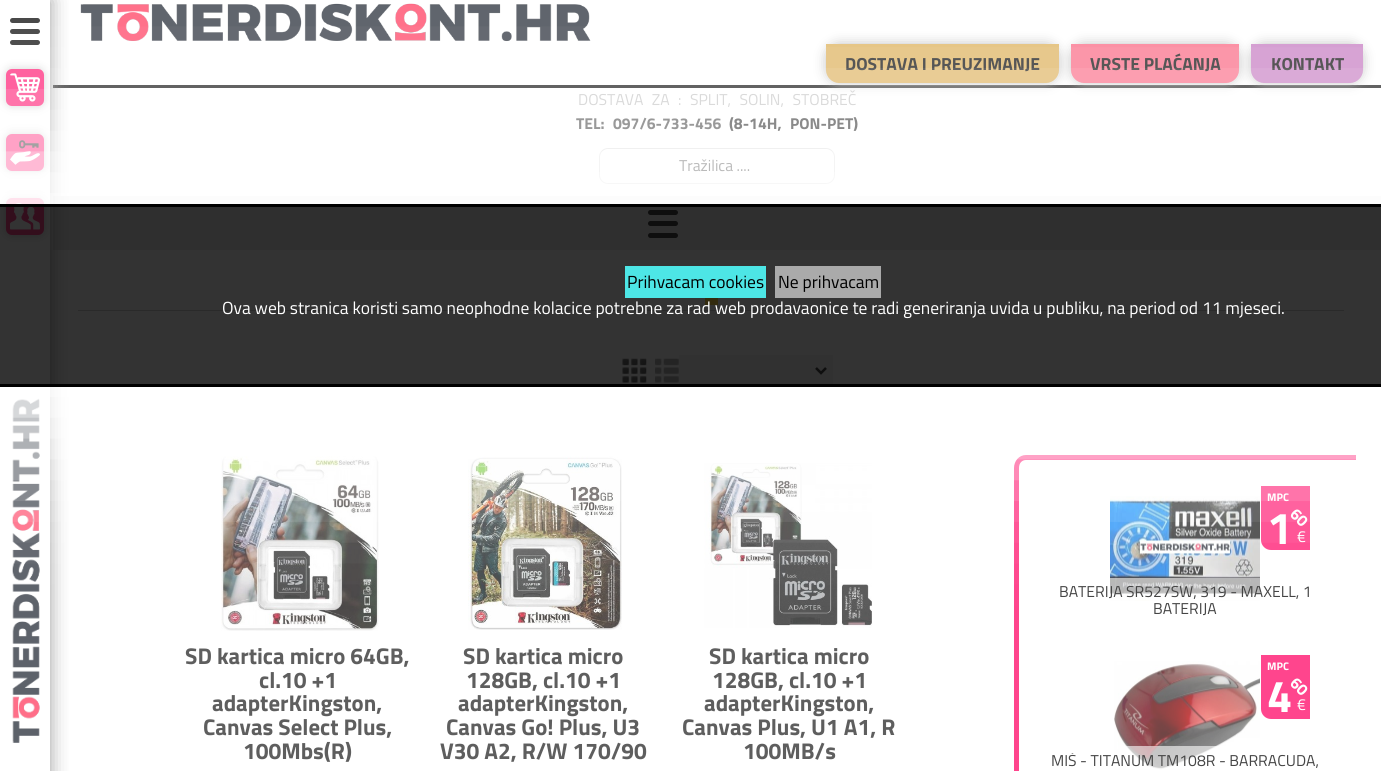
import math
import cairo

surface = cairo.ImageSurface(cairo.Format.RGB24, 1381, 771)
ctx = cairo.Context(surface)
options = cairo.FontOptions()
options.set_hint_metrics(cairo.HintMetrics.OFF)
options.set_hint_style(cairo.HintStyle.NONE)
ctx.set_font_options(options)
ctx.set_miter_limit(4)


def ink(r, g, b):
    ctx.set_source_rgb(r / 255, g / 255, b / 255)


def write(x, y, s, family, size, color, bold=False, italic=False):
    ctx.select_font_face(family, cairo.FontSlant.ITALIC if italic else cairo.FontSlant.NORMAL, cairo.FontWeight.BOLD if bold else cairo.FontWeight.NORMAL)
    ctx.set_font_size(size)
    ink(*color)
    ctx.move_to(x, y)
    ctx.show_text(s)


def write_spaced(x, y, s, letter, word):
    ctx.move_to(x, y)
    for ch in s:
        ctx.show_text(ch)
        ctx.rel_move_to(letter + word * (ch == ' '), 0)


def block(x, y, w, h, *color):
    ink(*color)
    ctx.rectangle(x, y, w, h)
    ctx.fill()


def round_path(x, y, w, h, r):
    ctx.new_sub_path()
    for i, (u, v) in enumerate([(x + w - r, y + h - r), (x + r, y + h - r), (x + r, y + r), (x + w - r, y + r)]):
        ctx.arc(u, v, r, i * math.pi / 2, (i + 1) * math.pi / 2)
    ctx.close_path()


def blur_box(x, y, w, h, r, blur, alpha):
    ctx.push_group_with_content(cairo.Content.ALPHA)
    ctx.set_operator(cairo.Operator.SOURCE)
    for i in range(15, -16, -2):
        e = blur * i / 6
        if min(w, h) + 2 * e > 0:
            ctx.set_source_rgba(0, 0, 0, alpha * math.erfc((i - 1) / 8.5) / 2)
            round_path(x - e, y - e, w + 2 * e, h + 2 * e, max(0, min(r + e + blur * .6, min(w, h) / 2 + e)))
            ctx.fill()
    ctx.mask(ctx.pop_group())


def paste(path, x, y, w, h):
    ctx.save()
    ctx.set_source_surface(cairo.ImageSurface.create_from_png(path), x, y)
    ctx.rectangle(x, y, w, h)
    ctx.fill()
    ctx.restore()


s1 = dict(family="Titillium Web", size=17.5, color=(69, 69, 69), bold=True)
s2 = dict(family="Titillium Web", size=15.75, color=(69, 69, 69))
s3 = dict(family="Titillium Web", size=17.5, color=(0, 0, 0))
s4 = dict(family="Titillium Web", size=17.5, color=(255, 255, 255))
s5 = dict(family="Titillium Web", size=22.75, color=(94, 94, 94), bold=True)
s6 = dict(family="Titillium Web", size=11, color=(255, 255, 255), bold=True)
s7 = dict(family="Titillium Web", size=45, color=(255, 255, 255), bold=True)
s8 = dict(family="Titillium Web", size=16, color=(255, 255, 255), bold=True)
s9 = dict(family="Titillium Web", size=16, color=(255, 255, 255))

ink(255, 255, 255)
ctx.paint()
block(53, 85, 1328, 3, 69, 69, 69)
block(53, 196, 1328, 54, 233, 233, 233)
block(78, 310, 1266, 1, 209, 209, 209)
ctx.save()
ctx.rectangle(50, 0, 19, 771)
ctx.clip()
ink(156, 156, 156)
blur_box(0, 0, 50, 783, 0, 9.5, 1)
ctx.restore()
ink(69, 69, 69)
round_path(10, 18, 30, 5, 2.5)
ctx.fill()
round_path(10, 29, 30, 5, 2.5)
ctx.fill()
round_path(10, 40, 30, 5, 2.5)
ctx.fill()
ink(205, 205, 205)
blur_box(6, 69, 38, 37, 6, 4.5, 1)
ink(255, 69, 141)
round_path(6, 69, 38, 37, 6)
ctx.fill()
paste("pic1.png", 10, 73, 30, 29)
ink(205, 205, 205)
blur_box(6, 134, 38, 37, 6, 4.5, 1)
ink(255, 69, 141)
round_path(6, 134, 38, 37, 6)
ctx.fill()
paste("pic2.png", 10, 140, 30, 25)
ink(205, 205, 205)
blur_box(6, 198, 38, 37, 6, 4.5, 1)
ink(255, 69, 141)
round_path(6, 198, 38, 37, 6)
ctx.fill()
paste("pic3.png", 10, 203, 30, 27)
paste("pic4.png", 12, 398, 28, 345)
paste("pic5.png", 80, 3, 511, 39)
ink(193, 193, 193)
blur_box(826, 44, 233, 39, 13, 6, 1)
ink(229, 195, 129)
ctx.new_path()
ctx.move_to(826, 44)
ctx.line_to(1059, 44)
ctx.line_to(1059, 70)
ctx.curve_to(1059, 77, 1053, 83, 1046, 83)
ctx.line_to(839, 83)
ctx.curve_to(832, 83, 826, 77, 826, 70)
ctx.close_path()
ctx.fill()
write(845, 70, "DOSTAVA I PREUZIMANJE", **s1)
ink(193, 193, 193)
blur_box(1071, 44, 168, 39, 13, 6, 1)
ink(251, 140, 161)
ctx.new_path()
ctx.move_to(1071, 44)
ctx.line_to(1239, 44)
ctx.line_to(1239, 70)
ctx.curve_to(1239, 77, 1233, 83, 1226, 83)
ctx.line_to(1084, 83)
ctx.curve_to(1077, 83, 1071, 77, 1071, 70)
ctx.close_path()
ctx.fill()
write(1090, 70, "VRSTE PLAĆANJA", **s1)
ink(193, 193, 193)
blur_box(1251, 44, 112, 39, 13, 6, 1)
ink(211, 154, 208)
ctx.new_path()
ctx.move_to(1251, 44)
ctx.line_to(1363, 44)
ctx.line_to(1363, 70)
ctx.curve_to(1363, 77, 1357, 83, 1350, 83)
ctx.line_to(1264, 83)
ctx.curve_to(1257, 83, 1251, 77, 1251, 70)
ctx.close_path()
ctx.fill()
write(1271, 70, "KONTAKT", **s1)
ctx.select_font_face("Titillium Web")
ctx.set_font_size(15.75)
ink(205, 205, 205)
write_spaced(578, 105, "DOSTAVA ZA : SPLIT, SOLIN, STOBREČ", 0, 5)
ctx.select_font_face("Titillium Web", cairo.FontSlant.NORMAL, cairo.FontWeight.BOLD)
ink(94, 94, 94)
write_spaced(576, 129, "TEL: 097/6-733-456", 0, 5)
ink(69, 69, 69)
write_spaced(729, 129, "(8-14H, PON-PET)", 0, 5)
round_path(599.5, 148.5, 235, 35, 8.5)
ink(225, 225, 225)
ctx.set_line_width(1)
ctx.stroke()
write(679, 171, "Tražilica ....", **s2)
round_path(648, 210, 30, 5, 2.5)
ctx.fill()
round_path(648, 221, 30, 5, 2.5)
ctx.fill()
round_path(648, 233, 30, 5, 2.5)
ctx.fill()
block(705, 298, 13, 7, 255, 217, 73)
paste("pic6.png", 622, 358, 25, 25)
paste("pic7.png", 655, 358, 24, 25)
block(679, 355, 154, 29, 243, 243, 243)
ctx.new_path()
ctx.move_to(816, 368)
ctx.line_to(821, 373)
ctx.line_to(826, 368)
ink(69, 69, 69)
ctx.set_line_width(2.5)
ctx.stroke()
paste("pic8.png", 221, 456, 158, 175)
paste("pic9.png", 468, 456, 154, 174)
paste("pic10.png", 704, 463, 168, 165)
ink(255, 69, 141)
ctx.set_fill_rule(cairo.FillRule.EVEN_ODD)
ctx.new_path()
ctx.move_to(1026, 455)
ctx.line_to(1356, 455)
ctx.line_to(1356, 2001)
ctx.line_to(1026, 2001)
ctx.curve_to(1019, 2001, 1014, 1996, 1014, 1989)
ctx.line_to(1014, 468)
ctx.curve_to(1014, 461, 1019, 455, 1026, 455)
ctx.close_path()
ctx.move_to(1026, 460)
ctx.line_to(1356, 460)
ctx.line_to(1356, 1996)
ctx.line_to(1026, 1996)
ctx.curve_to(1022, 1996, 1019, 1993, 1019, 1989)
ctx.line_to(1019, 468)
ctx.curve_to(1019, 463, 1022, 460, 1026, 460)
ctx.close_path()
ctx.fill()
paste("pic11.png", 1110, 496, 150, 105)
ctx.new_path()
ctx.move_to(1261, 486)
ctx.line_to(1310, 486)
ctx.line_to(1310, 550)
ctx.line_to(1271, 550)
ctx.curve_to(1265.5, 550, 1261, 545.5, 1261, 540)
ctx.close_path()
ctx.fill()
ctx.set_source_rgba(1, 1, 1, 0.6)
ctx.rectangle(1110, 578, 150, 22)
ctx.fill()
ctx.save()
ctx.new_path()
ctx.move_to(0, 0)
ctx.line_to(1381, 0)
ctx.line_to(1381, 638)
ctx.line_to(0, 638)
ctx.close_path()
ctx.move_to(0, 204)
ctx.line_to(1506, 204)
ctx.line_to(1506, 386)
ctx.line_to(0, 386)
ctx.close_path()
ctx.clip()
ink(255, 255, 255)
blur_box(-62, 141, 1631, 308, 0, 62.5, 1)
ctx.restore()
ctx.set_source_rgba(0, 0, 0, 0.8)
ctx.rectangle(0, 207, 1381, 177)
ctx.fill()
block(0, 204, 1381, 3, 0, 0, 0)
block(0, 384, 1381, 3, 0, 0, 0)
block(625, 266, 141, 32, 77, 230, 230)
write(627, 288, "Prihvacam cookies", **s3)
block(775, 266, 106, 32, 170, 170, 170)
write(778, 288, "Ne prihvacam", **s3)
write(222, 314, "Ova web stranica koristi samo neophodne kolacice potrebne za rad web prodavaonice te radi generiranja uvida u publiku, na period od 11 mjeseci.", **s4)
write(185, 664, "SD kartica micro 64GB,", **s5)
write(259, 688, "cl.10 +1", **s5)
write(212, 711, "adapterKingston,", **s5)
write(203, 735, "Canvas Select Plus,", **s5)
write(243, 759, "100Mbs(R)", **s5)
write(463, 664, "SD kartica micro", **s5)
write(466, 688, "128GB, cl.10 +1", **s5)
write(458, 711, "adapterKingston,", **s5)
write(446, 735, "Canvas Go! Plus, U3", **s5)
write(440, 759, "V30 A2, R/W 170/90", **s5)
write(709, 664, "SD kartica micro", **s5)
write(712, 688, "128GB, cl.10 +1", **s5)
write(704, 711, "adapterKingston,", **s5)
write(682, 735, "Canvas Plus, U1 A1, R", **s5)
write(743, 759, "100MB/s", **s5)
write(1267, 501, "MPC", **s6)
write(1267, 544, "1", **s7)
ctx.save()
ctx.translate(1289, 515)
ctx.rotate(45 * math.pi / 180)
write(0, 0, "60", **s8)
ctx.restore()
write(1297, 542, "€", **s9)
write(1059, 597, "BATERIJA SR527SW, 319 - MAXELL, 1", **s2)
write(1153, 614, "BATERIJA", **s2)
paste("pic12.png", 1114, 661, 146, 109)
ink(255, 69, 141)
ctx.new_path()
ctx.move_to(1261, 655)
ctx.line_to(1310, 655)
ctx.line_to(1310, 719)
ctx.line_to(1271, 719)
ctx.curve_to(1265.5, 719, 1261, 714.5, 1261, 709)
ctx.close_path()
ctx.fill()
write(1267, 670, "MPC", **s6)
write(1267, 712, "4", **s7)
ctx.save()
ctx.translate(1289, 684)
ctx.rotate(45 * math.pi / 180)
write(0, 0, "60", **s8)
ctx.restore()
write(1297, 710, "€", **s9)
ctx.set_source_rgba(1, 1, 1, 0.6)
ctx.rectangle(1126, 746, 92, 23)
ctx.fill()
ctx.save()
ctx.set_fill_rule(cairo.FillRule.WINDING)
ctx.rectangle(1031, 753, 308, 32)
ctx.clip()
write(1051, 766, "MIŠ - TITANUM TM108R - BARRACUDA,", **s2)
ctx.restore()
surface.write_to_png("screenshot.png")
